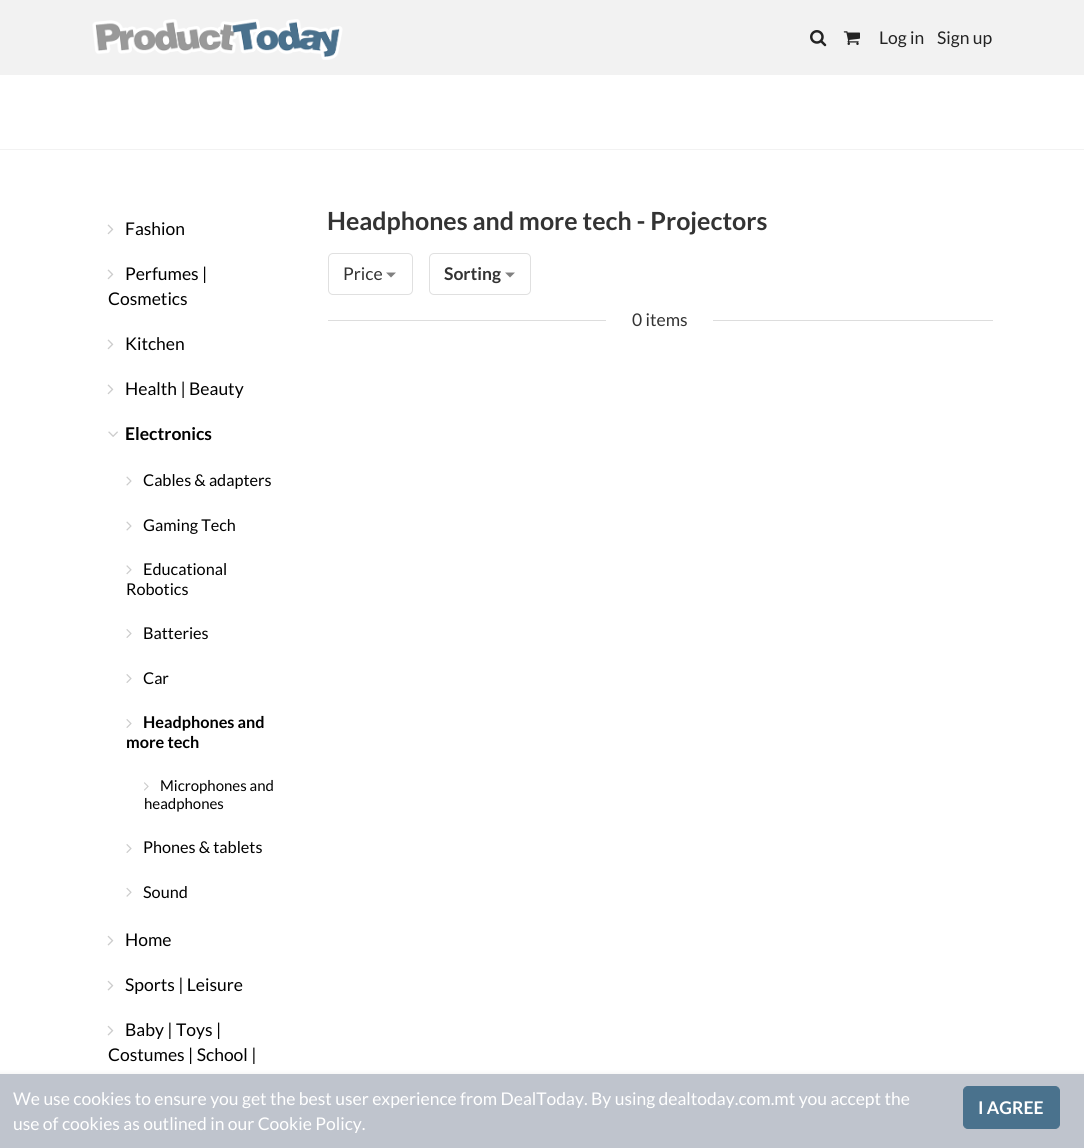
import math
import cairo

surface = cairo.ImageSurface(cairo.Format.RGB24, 1084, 1148)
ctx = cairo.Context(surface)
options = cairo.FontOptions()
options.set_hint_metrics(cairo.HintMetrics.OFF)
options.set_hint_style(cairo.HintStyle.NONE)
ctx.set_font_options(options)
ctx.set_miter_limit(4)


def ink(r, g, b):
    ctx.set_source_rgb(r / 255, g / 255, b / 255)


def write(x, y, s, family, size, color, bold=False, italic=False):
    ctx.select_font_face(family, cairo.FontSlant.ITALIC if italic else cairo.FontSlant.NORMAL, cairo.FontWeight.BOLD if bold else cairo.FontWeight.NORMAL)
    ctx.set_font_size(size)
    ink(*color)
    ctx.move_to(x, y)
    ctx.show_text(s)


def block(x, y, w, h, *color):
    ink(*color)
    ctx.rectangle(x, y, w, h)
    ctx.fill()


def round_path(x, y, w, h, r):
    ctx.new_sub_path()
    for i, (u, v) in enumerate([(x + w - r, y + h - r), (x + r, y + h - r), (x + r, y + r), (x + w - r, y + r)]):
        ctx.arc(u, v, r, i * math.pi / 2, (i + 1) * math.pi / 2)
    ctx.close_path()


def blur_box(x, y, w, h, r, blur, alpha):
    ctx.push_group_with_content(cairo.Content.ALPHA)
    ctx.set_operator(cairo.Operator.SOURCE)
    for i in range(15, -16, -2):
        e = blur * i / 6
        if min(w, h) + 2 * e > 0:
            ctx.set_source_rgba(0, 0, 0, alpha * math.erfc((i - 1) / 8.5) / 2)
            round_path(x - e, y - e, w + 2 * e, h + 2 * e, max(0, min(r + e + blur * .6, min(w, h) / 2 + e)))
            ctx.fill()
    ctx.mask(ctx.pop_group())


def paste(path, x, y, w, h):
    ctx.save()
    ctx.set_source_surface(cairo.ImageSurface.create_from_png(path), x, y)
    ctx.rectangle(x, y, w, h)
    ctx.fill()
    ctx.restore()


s1 = dict(family="Lato", size=17.5, color=(35, 35, 35))
s2 = dict(family="Lato", size=17.5, color=(0, 0, 0))
s3 = dict(family="Lato", size=17.5, color=(0, 0, 0), bold=True)
s4 = dict(family="Lato", size=16.25, color=(0, 0, 0))
s5 = dict(family="Lato", size=16.25, color=(0, 0, 0), bold=True)
s6 = dict(family="Lato", size=15, color=(0, 0, 0))
s7 = dict(family="Lato", size=25, color=(51, 51, 51), bold=True)
s8 = dict(family="Lato", size=17.5, color=(51, 51, 51))
s9 = dict(family="Lato", size=17.5, color=(51, 51, 51), bold=True)
s10 = dict(family="Lato", size=17.5, color=(255, 255, 255))
s11 = dict(family="Lato", size=17.5, color=(255, 255, 255), bold=True)

ink(255, 255, 255)
ctx.paint()
block(0, 0, 1084, 75, 242, 242, 242)
paste("pic1.png", 92, 19, 251, 41)
paste("pic2.png", 810, 30, 17, 17)
paste("pic3.png", 843, 31, 17, 14)
write(879, 44, "Log in", **s1)
write(937, 44, "Sign up", **s1)
block(0, 149, 1084, 1, 242, 242, 242)
paste("pic4.png", 107, 224, 7, 11)
write(125, 235, "Fashion", **s2)
paste("pic4.png", 107, 269, 7, 11)
write(125, 280, "Perfumes |", **s2)
write(108, 305, "Cosmetics", **s2)
paste("pic4.png", 107, 339, 7, 11)
write(125, 350, "Kitchen", **s2)
paste("pic4.png", 107, 384, 7, 11)
write(125, 395, "Health | Beauty", **s2)
paste("pic5.png", 108, 431, 10, 6)
write(125, 440, "Electronics", **s3)
paste("pic6.png", 126, 476, 6, 10)
write(143, 486, "Cables & adapters", **s4)
paste("pic6.png", 126, 521, 6, 10)
write(143, 531, "Gaming Tech", **s4)
paste("pic7.png", 126, 565, 6, 10)
write(143, 575, "Educational", **s4)
write(126, 595, "Robotics", **s4)
paste("pic8.png", 126, 629, 6, 9)
write(143, 639, "Batteries", **s4)
paste("pic8.png", 126, 674, 6, 9)
write(143, 684, "Car", **s4)
paste("pic8.png", 126, 719, 6, 9)
write(143, 728, "Headphones and", **s5)
write(126, 748, "more tech", **s5)
paste("pic9.png", 144, 782, 5, 9)
write(160, 791, "Microphones and", **s6)
write(144, 809, "headphones", **s6)
paste("pic8.png", 126, 844, 6, 9)
write(143, 853, "Phones & tablets", **s4)
paste("pic10.png", 126, 887, 6, 10)
write(143, 898, "Sound", **s4)
paste("pic11.png", 107, 935, 7, 11)
write(125, 946, "Home", **s2)
paste("pic11.png", 107, 980, 7, 11)
write(125, 991, "Sports | Leisure", **s2)
paste("pic11.png", 107, 1025, 7, 11)
write(125, 1036, "Baby | Toys |", **s2)
write(108, 1061, "Costumes | School |", **s2)
write(327, 230, "Headphones and more tech - Projectors", **s7)
round_path(328.5, 253.5, 84, 41, 4.5)
ink(224, 224, 224)
ctx.set_line_width(1)
ctx.stroke()
write(343, 280, "Price", **s8)
ink(128, 128, 128)
ctx.new_path()
ctx.move_to(386, 272.5)
ctx.line_to(396, 272.5)
ctx.line_to(391, 277.5)
ctx.close_path()
ctx.fill()
round_path(429.5, 253.5, 101, 41, 4.5)
ink(224, 224, 224)
ctx.stroke()
write(444, 280, "Sorting", **s9)
ink(128, 128, 128)
ctx.new_path()
ctx.move_to(505, 272.5)
ctx.line_to(515, 272.5)
ctx.line_to(510, 277.5)
ctx.close_path()
ctx.fill()
block(328, 320, 665, 1, 221, 221, 221)
block(606, 320, 107, 1, 255, 255, 255)
write(632, 326, "0 items", **s8)
ink(0, 0, 0)
blur_box(-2, 1075, 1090, 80, 0, 3, 0.1)
block(0, 1074, 1084, 74, 191, 196, 205)
write(13, 1105, "We use cookies to ensure you get the best user experience from DealToday. By using dealtoday.com.mt you accept the", **s10)
write(13, 1130, "use of cookies as outlined in our Cookie Policy.", **s10)
ink(74, 114, 141)
round_path(963.5, 1086.5, 96, 42, 4.5)
ctx.fill_preserve()
ctx.stroke()
write(978, 1114, "I AGREE", **s11)
surface.write_to_png("screenshot.png")
